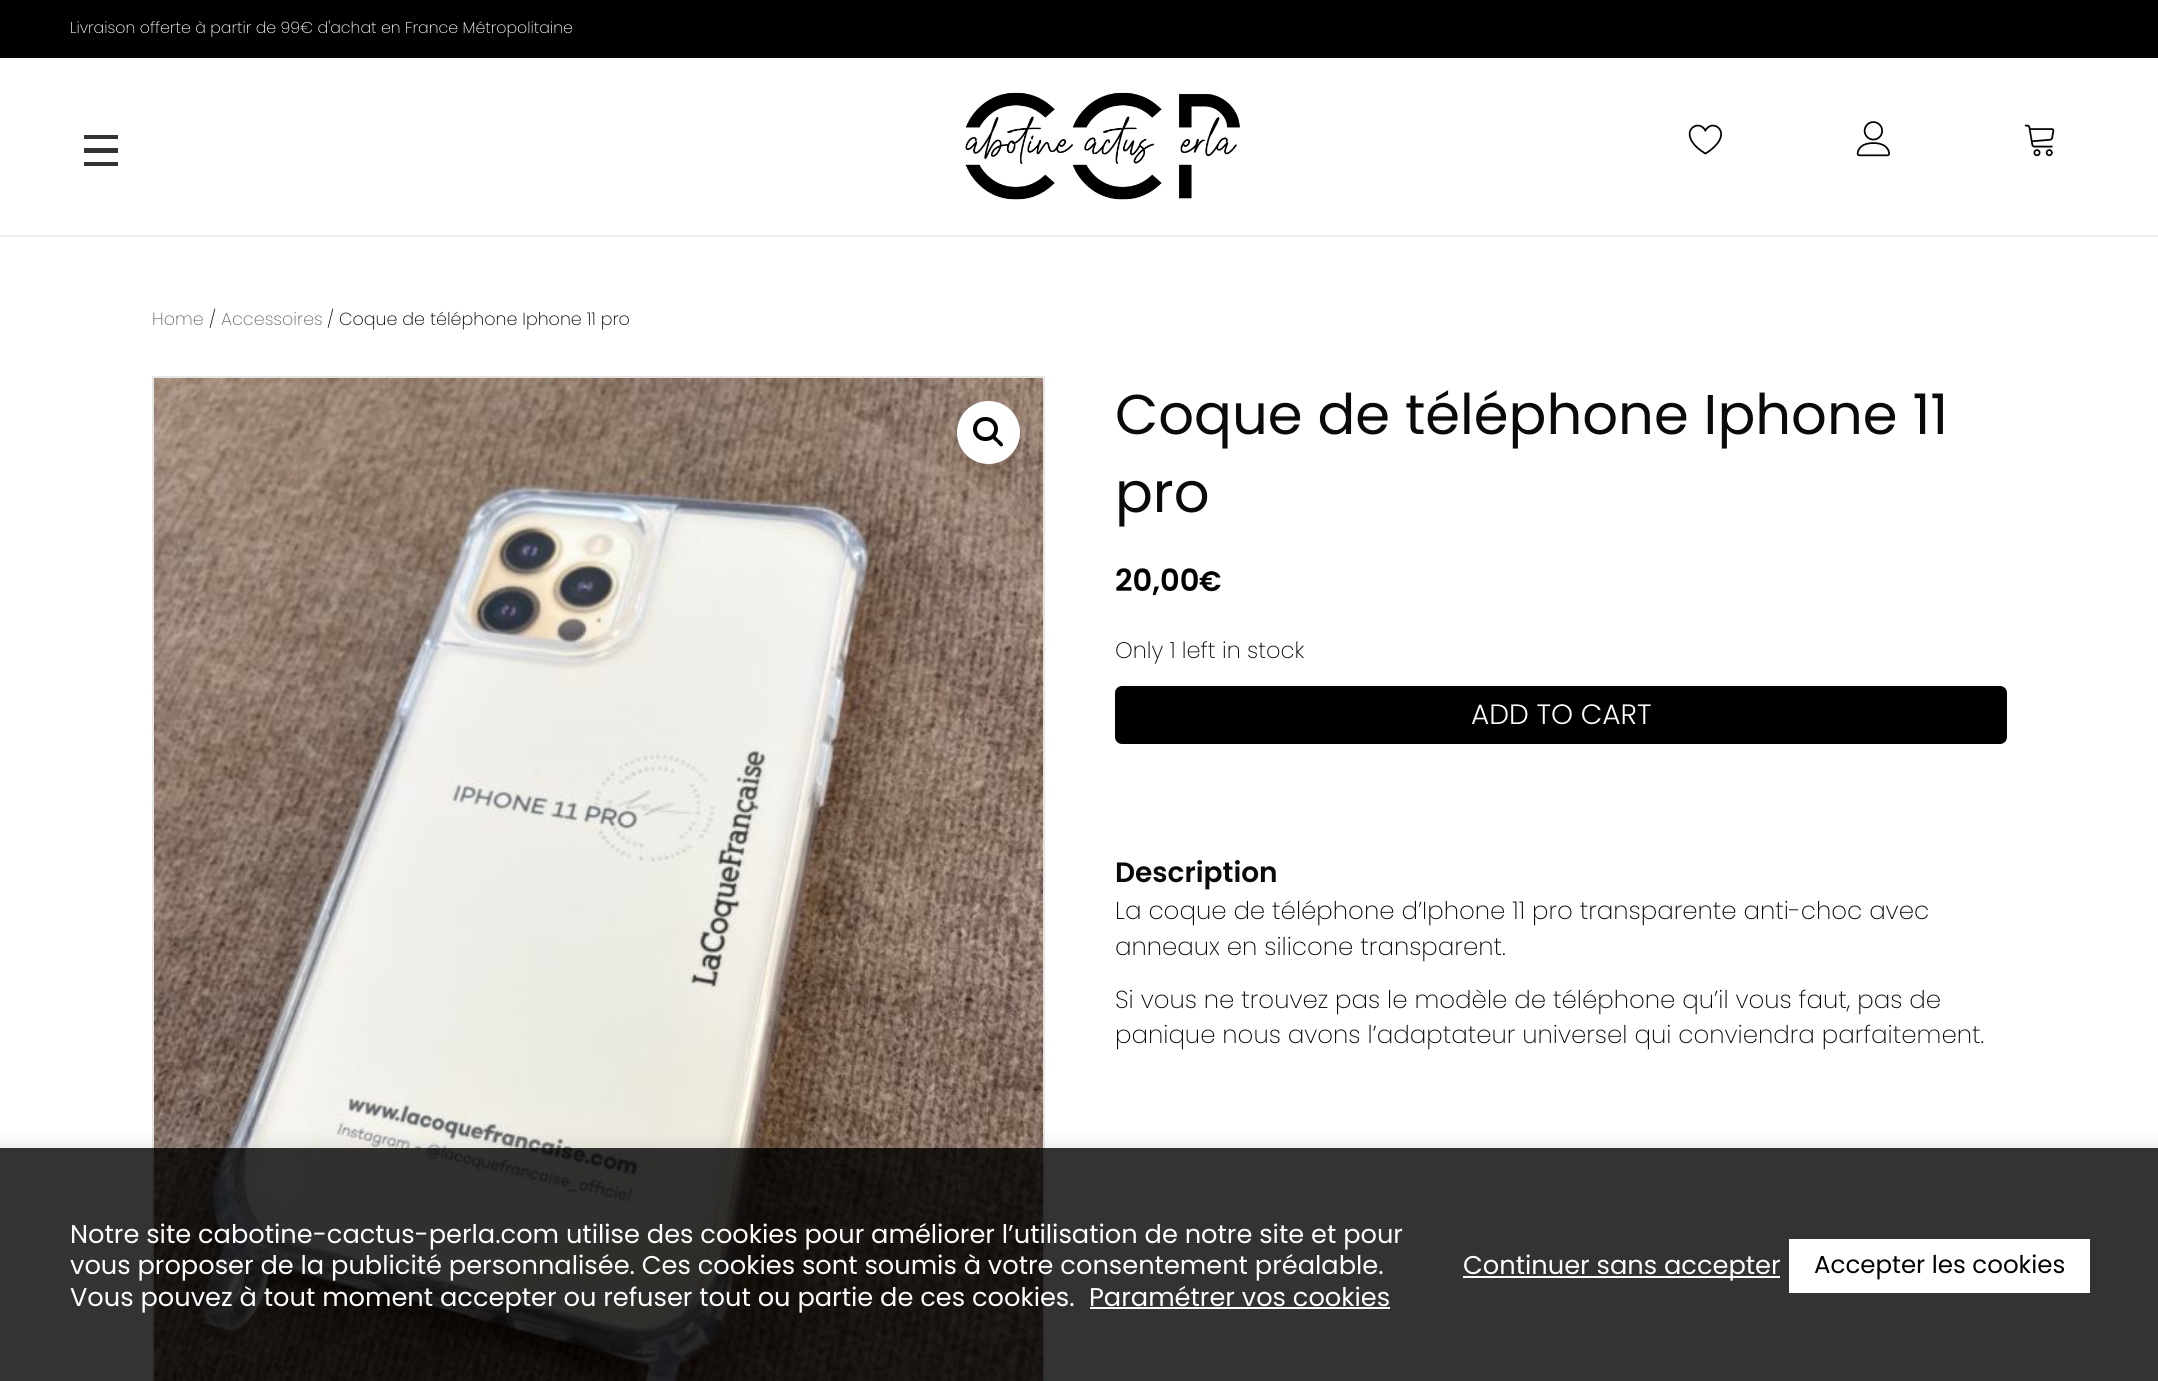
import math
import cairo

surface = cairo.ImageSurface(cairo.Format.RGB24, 2158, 1381)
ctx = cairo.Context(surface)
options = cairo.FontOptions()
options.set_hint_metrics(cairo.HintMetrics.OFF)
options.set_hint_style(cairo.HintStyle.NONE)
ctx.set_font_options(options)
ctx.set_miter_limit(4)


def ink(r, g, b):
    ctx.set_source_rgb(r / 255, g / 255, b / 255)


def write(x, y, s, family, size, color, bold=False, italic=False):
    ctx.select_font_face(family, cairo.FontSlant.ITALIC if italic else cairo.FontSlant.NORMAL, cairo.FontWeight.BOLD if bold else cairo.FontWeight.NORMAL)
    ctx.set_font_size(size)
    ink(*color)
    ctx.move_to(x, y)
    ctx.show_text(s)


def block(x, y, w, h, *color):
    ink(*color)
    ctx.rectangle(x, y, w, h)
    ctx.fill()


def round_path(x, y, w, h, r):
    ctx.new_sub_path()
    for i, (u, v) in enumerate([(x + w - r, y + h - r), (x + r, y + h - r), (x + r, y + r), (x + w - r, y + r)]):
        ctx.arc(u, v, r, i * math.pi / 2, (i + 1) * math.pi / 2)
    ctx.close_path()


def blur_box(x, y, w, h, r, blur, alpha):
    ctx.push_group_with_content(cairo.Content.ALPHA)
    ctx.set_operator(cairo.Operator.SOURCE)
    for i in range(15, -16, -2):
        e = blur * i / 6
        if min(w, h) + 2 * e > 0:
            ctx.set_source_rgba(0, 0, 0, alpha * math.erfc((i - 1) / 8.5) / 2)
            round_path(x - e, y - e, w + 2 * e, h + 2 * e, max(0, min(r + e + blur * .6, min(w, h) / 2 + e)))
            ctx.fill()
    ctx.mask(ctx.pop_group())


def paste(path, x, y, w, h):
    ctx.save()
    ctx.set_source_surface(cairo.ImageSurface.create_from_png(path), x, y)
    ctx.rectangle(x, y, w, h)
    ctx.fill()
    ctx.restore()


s1 = dict(family="Poppins ExtraLight", size=15.75, color=(255, 255, 255))
s2 = dict(family="Poppins ExtraLight", size=17.5, color=(102, 102, 102))
s3 = dict(family="Poppins ExtraLight", size=17.5, color=(0, 0, 0))
s4 = dict(family="Poppins", size=56, color=(10, 10, 10))
s5 = dict(family="Poppins SemiBold", size=30.5, color=(0, 0, 0))
s6 = dict(family="Poppins SemiBold", size=28, color=(0, 0, 0))
s7 = dict(family="Poppins ExtraLight", size=22.5, color=(10, 10, 10))
s8 = dict(family="Poppins Light", size=28, color=(255, 255, 255))
s9 = dict(family="Poppins SemiBold", size=28, color=(10, 10, 10))
s10 = dict(family="Poppins ExtraLight", size=24.5, color=(10, 10, 10))
s11 = dict(family="Poppins", size=25.67, color=(255, 255, 255))
s12 = dict(family="Poppins", size=24.5, color=(0, 0, 0))

ink(255, 255, 255)
ctx.paint()
block(0, 0, 2158, 58, 0, 0, 0)
write(70, 33, "Livraison offerte à partir de 99€ d'achat en France Métropolitaine", **s1)
block(0, 235, 2158, 2, 237, 237, 237)
block(84, 135, 34, 4, 51, 51, 51)
block(84, 148, 34, 5, 51, 51, 51)
block(84, 162, 34, 4, 51, 51, 51)
paste("pic1.png", 965, 92, 275, 108)
paste("pic2.png", 1688, 124, 34, 31)
paste("pic3.png", 1856, 121, 34, 36)
paste("pic4.png", 2024, 124, 31, 33)
write(152, 325, "Home", **s2)
write(209, 325, "/", **s3)
write(221, 325, "Accessoires", **s2)
write(327, 325, "/ Coque de téléphone Iphone 11 pro", **s3)
ctx.rectangle(153, 377, 891, 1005)
ink(230, 230, 230)
ctx.stroke()
paste("pic5.png", 154, 378, 889, 1003)
ink(255, 255, 255)
ctx.arc(988.5, 432.5, 31.5, 0, 2 * math.pi)
ctx.fill()
round_path(975, 419, 21, 20, 10)
ink(0, 0, 0)
ctx.set_line_width(4)
ctx.stroke()
ctx.new_path()
ctx.move_to(992.5, 436)
ctx.curve_to(994.5, 434, 997.5, 438.5, 998.5, 439.5)
ctx.curve_to(1000, 440.5, 1004.5, 444, 1002.5, 446)
ctx.curve_to(1000.5, 448, 997.5, 443, 996.5, 442)
ctx.curve_to(995, 441, 990.5, 438, 992.5, 436)
ctx.close_path()
ctx.fill()
write(1115, 434, "Coque de téléphone Iphone 11", **s4)
write(1115, 512, "pro", **s4)
write(1115, 591, "20,00", **s5)
write(1199, 591, "€", **s6)
write(1115, 658, "Only 1 left in stock", **s7)
ink(0, 0, 0)
round_path(1116, 687, 890, 56, 6)
ctx.fill_preserve()
ctx.set_line_width(2)
ctx.stroke()
write(1471, 724, "ADD TO CART", **s8)
write(1115, 882, "Description", **s9)
write(1115, 919, "La coque de téléphone d’Iphone 11 pro transparente anti-choc avec", **s10)
write(1115, 955, "anneaux en silicone transparent.", **s10)
write(1115, 1008, "Si vous ne trouvez pas le modèle de téléphone qu’il vous faut, pas de", **s10)
write(1115, 1043, "panique nous avons l’adaptateur universel qui conviendra parfaitement.", **s10)
ctx.save()
ctx.rectangle(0, 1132, 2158, 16)
ctx.clip()
ink(172, 171, 171)
blur_box(0, 1146, 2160, 235, 0, 9, 0.3)
ctx.restore()
ctx.set_source_rgba(0, 0, 0, 0.8)
ctx.rectangle(0, 1148, 2158, 233)
ctx.fill()
write(70, 1243, "Notre site cabotine-cactus-perla.com utilise des cookies pour améliorer l’utilisation de notre site et pour", **s11)
write(70, 1274, "vous proposer de la publicité personnalisée. Ces cookies sont soumis à votre consentement préalable.", **s11)
write(70, 1306, "Vous pouvez à tout moment accepter ou refuser tout ou partie de ces cookies.", **s11)
write(1089, 1306, "Paramétrer vos cookies", **s11)
block(1090, 1307, 300, 2, 255, 255, 255)
block(1463, 1276, 317, 2, 255, 255, 255)
write(1463, 1274, "Continuer sans accepter", **s11)
block(1789, 1239, 301, 54, 255, 255, 255)
write(1814, 1273, "Accepter les cookies", **s12)
surface.write_to_png("screenshot.png")
